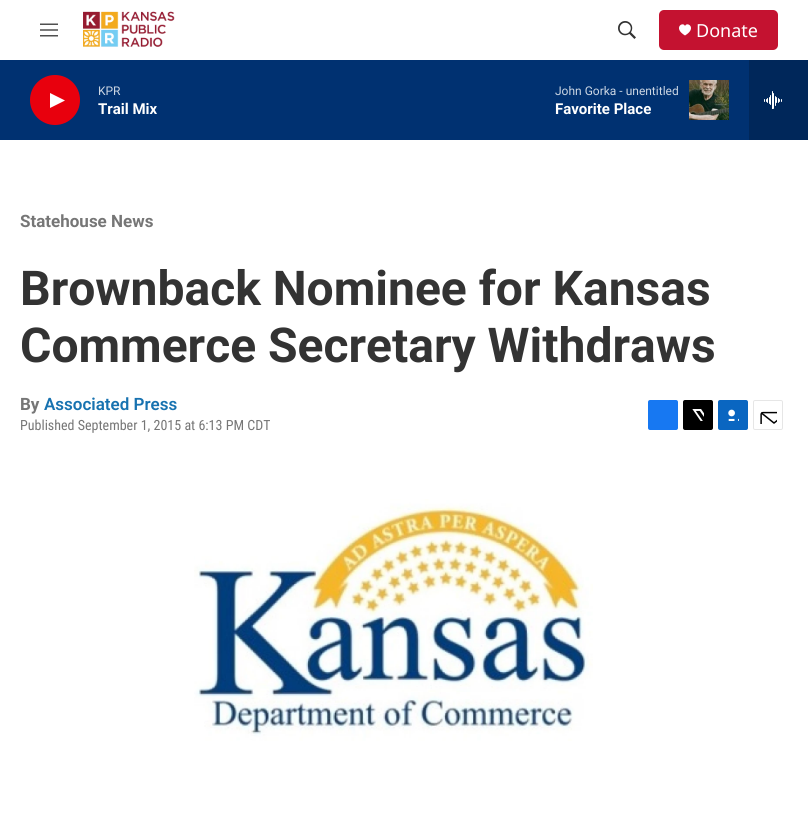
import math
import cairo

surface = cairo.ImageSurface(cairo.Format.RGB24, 808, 815)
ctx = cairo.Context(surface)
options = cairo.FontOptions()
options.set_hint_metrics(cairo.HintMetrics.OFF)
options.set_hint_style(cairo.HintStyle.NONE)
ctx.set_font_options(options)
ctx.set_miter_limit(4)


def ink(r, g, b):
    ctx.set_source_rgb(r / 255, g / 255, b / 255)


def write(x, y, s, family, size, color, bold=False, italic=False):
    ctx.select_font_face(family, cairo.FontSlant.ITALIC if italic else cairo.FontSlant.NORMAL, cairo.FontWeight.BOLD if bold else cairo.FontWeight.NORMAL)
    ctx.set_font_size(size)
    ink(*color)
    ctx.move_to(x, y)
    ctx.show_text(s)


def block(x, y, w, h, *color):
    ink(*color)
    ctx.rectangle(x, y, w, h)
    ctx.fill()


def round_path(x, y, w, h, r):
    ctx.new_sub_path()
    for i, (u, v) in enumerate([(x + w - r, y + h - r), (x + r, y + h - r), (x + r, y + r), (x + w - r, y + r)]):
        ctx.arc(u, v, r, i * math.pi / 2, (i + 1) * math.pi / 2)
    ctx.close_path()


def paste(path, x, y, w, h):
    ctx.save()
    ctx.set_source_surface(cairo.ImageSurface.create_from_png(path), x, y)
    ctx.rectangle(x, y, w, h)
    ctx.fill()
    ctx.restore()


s1 = dict(family="Noto Sans", size=18, color=(255, 255, 255))
s2 = dict(family="Roboto", size=12, color=(204, 214, 227))
s3 = dict(family="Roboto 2", size=15, color=(255, 255, 255), bold=True)
s4 = dict(family="Roboto", size=17, color=(118, 118, 118), bold=True)
s5 = dict(family="Roboto", size=48, color=(51, 51, 51), bold=True)
s6 = dict(family="Roboto SemiBold", size=17, color=(23, 114, 176))
s7 = dict(family="Roboto Condensed", size=14, color=(118, 118, 118))

ink(255, 255, 255)
ctx.paint()
paste("pic1.png", 40, 23, 18, 14)
paste("pic2.png", 83, 11, 92, 36)
paste("pic3.png", 618, 21, 18, 18)
ink(196, 18, 48)
round_path(659, 10, 119, 40, 5)
ctx.fill()
ink(255, 255, 255)
ctx.new_path()
ctx.move_to(685, 26)
ctx.curve_to(683, 21, 672.5, 28, 685, 35.5)
ctx.curve_to(697.5, 28, 687, 21, 685, 26)
ctx.close_path()
ctx.fill()
write(696, 37, "Donate", **s1)
block(0, 60, 749, 80, 0, 49, 113)
ink(232, 0, 13)
ctx.new_path()
ctx.arc(55, 100, 25, 0, 2 * math.pi)
ctx.fill()
ink(255, 255, 255)
ctx.new_path()
ctx.move_to(50, 93)
ctx.line_to(65, 100.5)
ctx.line_to(50, 108)
ctx.close_path()
ctx.fill()
write(98, 95, "KPR", **s2)
write(98, 114, "Trail Mix", **s3)
write(555, 95, "John Gorka - unentitled", **s2)
write(555, 114, "Favorite Place", **s3)
paste("pic4.png", 689, 80, 40, 40)
block(749, 60, 59, 80, 0, 39, 90)
paste("pic5.png", 764, 91, 18, 18)
write(20, 227, "Statehouse News", **s4)
write(20, 305, "Brownback Nominee for Kansas", **s5)
write(20, 362, "Commerce Secretary Withdraws", **s5)
write(20, 410, "By", **s4)
write(44, 410, "Associated Press", **s6)
write(20, 430, "Published September 1, 2015 at 6:13 PM CDT", **s7)
ink(23, 120, 242)
round_path(648, 400, 30, 30, 2)
ctx.fill()
ink(0, 0, 0)
round_path(683, 400, 30, 30, 2)
ctx.fill()
paste("pic6.png", 692, 409, 12, 12)
ink(10, 102, 193)
round_path(718, 400, 30, 30, 2)
ctx.fill()
paste("pic7.png", 728, 409, 11, 12)
round_path(753.5, 400.5, 29, 29, 1.5)
ink(230, 230, 230)
ctx.set_line_width(1)
ctx.stroke()
paste("pic8.png", 760, 411, 17, 13)
paste("pic9.png", 194, 499, 399, 242)
surface.write_to_png("screenshot.png")
